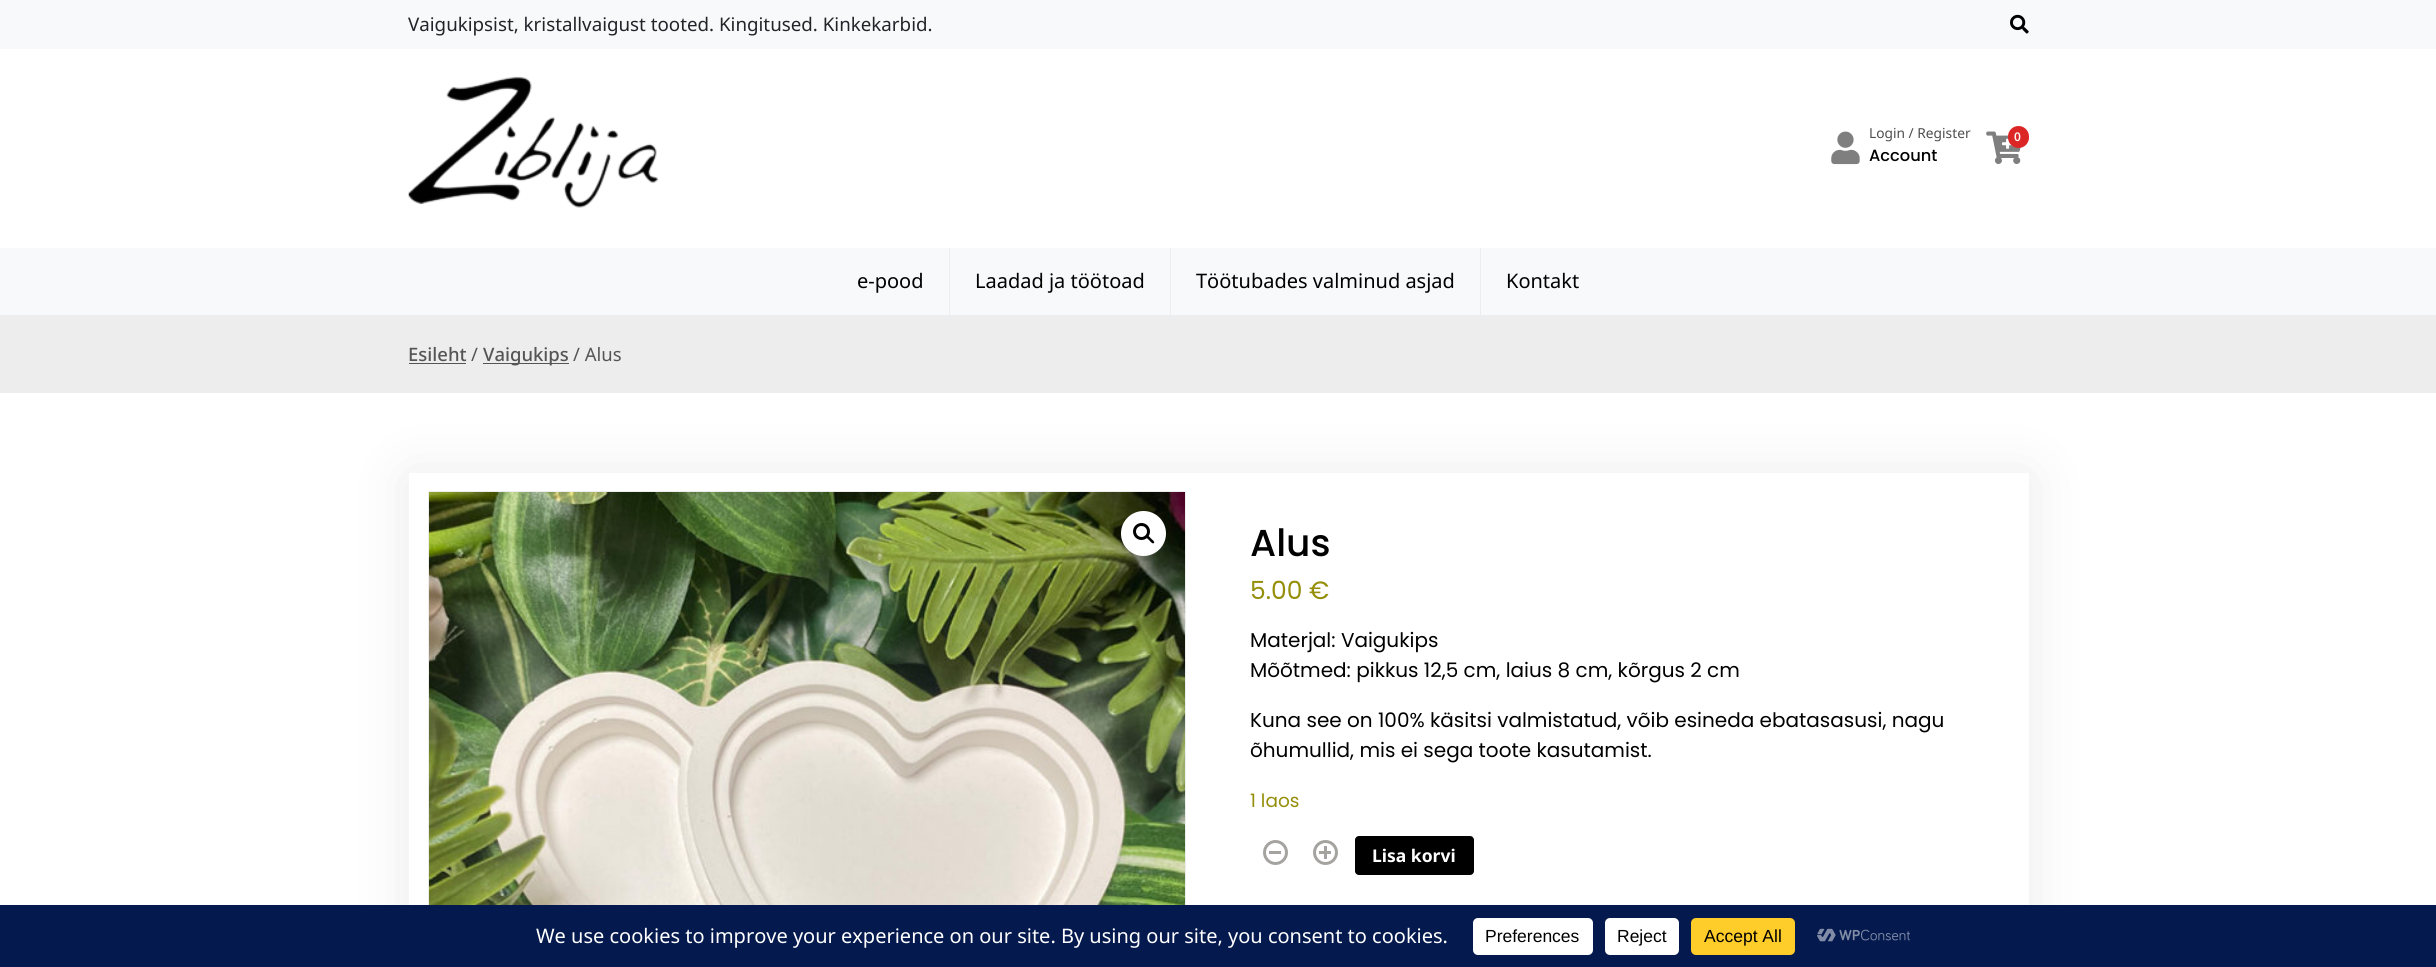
import math
import cairo

surface = cairo.ImageSurface(cairo.Format.RGB24, 2436, 967)
ctx = cairo.Context(surface)
options = cairo.FontOptions()
options.set_hint_metrics(cairo.HintMetrics.OFF)
options.set_hint_style(cairo.HintStyle.NONE)
ctx.set_font_options(options)
ctx.set_miter_limit(4)


def ink(r, g, b):
    ctx.set_source_rgb(r / 255, g / 255, b / 255)


def write(x, y, s, family, size, color, bold=False, italic=False):
    ctx.select_font_face(family, cairo.FontSlant.ITALIC if italic else cairo.FontSlant.NORMAL, cairo.FontWeight.BOLD if bold else cairo.FontWeight.NORMAL)
    ctx.set_font_size(size)
    ink(*color)
    ctx.move_to(x, y)
    ctx.show_text(s)


def block(x, y, w, h, *color):
    ink(*color)
    ctx.rectangle(x, y, w, h)
    ctx.fill()


def round_path(x, y, w, h, r):
    ctx.new_sub_path()
    for i, (u, v) in enumerate([(x + w - r, y + h - r), (x + r, y + h - r), (x + r, y + r), (x + w - r, y + r)]):
        ctx.arc(u, v, r, i * math.pi / 2, (i + 1) * math.pi / 2)
    ctx.close_path()


def blur_box(x, y, w, h, r, blur, alpha):
    ctx.push_group_with_content(cairo.Content.ALPHA)
    ctx.set_operator(cairo.Operator.SOURCE)
    for i in range(15, -16, -2):
        e = blur * i / 6
        if min(w, h) + 2 * e > 0:
            ctx.set_source_rgba(0, 0, 0, alpha * math.erfc((i - 1) / 8.5) / 2)
            round_path(x - e, y - e, w + 2 * e, h + 2 * e, max(0, min(r + e + blur * .6, min(w, h) / 2 + e)))
            ctx.fill()
    ctx.mask(ctx.pop_group())


def paste(path, x, y, w, h):
    ctx.save()
    ctx.set_source_surface(cairo.ImageSurface.create_from_png(path), x, y)
    ctx.rectangle(x, y, w, h)
    ctx.fill()
    ctx.restore()


s1 = dict(family="Noto Sans", size=18.75, color=(33, 37, 41))
s2 = dict(family="Noto Sans", size=13.75, color=(77, 77, 77))
s3 = dict(family="Poppins Medium", size=16.25, color=(0, 0, 0))
s4 = dict(family="Noto Sans SemiBold", size=12, color=(254, 242, 242))
s5 = dict(family="Noto Sans", size=20, color=(0, 0, 0))
s6 = dict(family="Noto Sans Medium", size=18.5, color=(85, 85, 85))
s7 = dict(family="Noto Sans", size=18.5, color=(85, 85, 85))
s8 = dict(family="Poppins Medium", size=37.5, color=(0, 0, 0))
s9 = dict(family="Poppins", size=25, color=(149, 142, 9))
s10 = dict(family="Poppins", size=20, color=(0, 0, 0))
s11 = dict(family="Poppins", size=18.5, color=(149, 142, 9))
s12 = dict(family="Noto Sans", size=17.5, color=(255, 255, 255), bold=True)
s13 = dict(family="Noto Sans", size=20, color=(255, 255, 255))
s14 = dict(family="Liberation Sans", size=17.5, color=(0, 0, 0))

ink(255, 255, 255)
ctx.paint()
block(0, 0, 2436, 49, 248, 249, 250)
write(408, 31, "Vaigukipsist, kristallvaigust tooted. Kingitused. Kinkekarbid.", **s1)
paste("pic1.png", 2010, 14, 19, 20)
paste("pic2.png", 408, 76, 251, 132)
paste("pic3.png", 1831, 131, 29, 34)
write(1869, 138, "Login / Register", **s2)
write(1869, 161, "Account", **s3)
paste("pic4.png", 1986, 131, 35, 33)
ink(220, 38, 38)
round_path(2008, 126, 21, 22, 10.5)
ctx.fill()
write(2014, 141, "0", **s4)
block(0, 248, 2436, 67, 248, 249, 250)
block(949, 248, 1, 67, 237, 237, 237)
write(857, 288, "e-pood", **s5)
block(1170, 248, 1, 67, 237, 237, 237)
write(975, 288, "Laadad ja töötoad", **s5)
block(1480, 248, 1, 67, 237, 237, 237)
write(1196, 288, "Töötubades valminud asjad", **s5)
write(1506, 288, "Kontakt", **s5)
block(0, 315, 2436, 78, 237, 237, 237)
write(408, 361, "Esileht", **s6)
block(409, 363, 57, 1, 85, 85, 85)
write(471, 361, "/", **s7)
block(483, 363, 86, 1, 85, 85, 85)
write(483, 361, "Vaigukips", **s6)
write(573, 361, "/ Alus", **s7)
ctx.save()
ctx.set_fill_rule(cairo.FillRule.EVEN_ODD)
ctx.new_path()
ctx.move_to(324, 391)
ctx.line_to(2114, 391)
ctx.line_to(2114, 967)
ctx.line_to(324, 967)
ctx.close_path()
ctx.move_to(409, 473)
ctx.line_to(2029, 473)
ctx.line_to(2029, 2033)
ctx.line_to(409, 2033)
ctx.close_path()
ctx.clip()
ink(36, 36, 36)
blur_box(409, 476, 1620, 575, 0, 28, 0.1)
ctx.restore()
ctx.rectangle(428.5, 491.5, 757, 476)
ink(237, 237, 237)
ctx.set_line_width(1)
ctx.stroke()
paste("pic5.png", 429, 492, 756, 413)
ink(255, 255, 255)
ctx.arc(1143.5, 533.5, 22.5, 0, 2 * math.pi)
ctx.fill()
ctx.arc(1141.5, 531.5, 7, 0, 2 * math.pi)
ink(0, 0, 0)
ctx.set_line_width(3)
ctx.stroke()
ctx.new_path()
ctx.move_to(1146.5, 536)
ctx.curve_to(1148, 534.5, 1150.5, 538, 1151, 538.5)
ctx.curve_to(1152, 539.5, 1155, 541.5, 1154, 543)
ctx.curve_to(1152.5, 544.5, 1150, 541, 1149.5, 540.5)
ctx.curve_to(1148.5, 539.5, 1145.5, 537.5, 1146.5, 536)
ctx.close_path()
ctx.fill()
write(1250, 556, "Alus", **s8)
write(1250, 599, "5.00 €", **s9)
write(1250, 647, "Materjal: Vaigukips", **s10)
write(1250, 677, "Mõõtmed: pikkus 12,5 cm, laius 8 cm, kõrgus 2 cm", **s10)
write(1250, 727, "Kuna see on 100% käsitsi valmistatud, võib esineda ebatasasusi, nagu", **s10)
write(1250, 757, "õhumullid, mis ei sega toote kasutamist.", **s10)
write(1250, 807, "1 laos", **s11)
ctx.new_path()
ctx.arc(1275.5, 852.5, 11, 0, 2 * math.pi)
ink(164, 163, 160)
ctx.stroke()
block(1269, 851, 12, 3, 164, 163, 160)
ctx.arc(1325.5, 852.5, 11, 0, 2 * math.pi)
ctx.stroke()
block(1324, 846, 3, 13, 164, 163, 160)
block(1319, 851, 12, 3, 164, 163, 160)
ink(0, 0, 0)
round_path(1355, 836, 119, 39, 4)
ctx.fill()
write(1372, 862, "Lisa korvi", **s12)
block(0, 905, 2436, 62, 4, 25, 78)
write(536, 943, "We use cookies to improve your experience on our site. By using our site, you consent to cookies.", **s13)
round_path(1473, 918, 120, 37, 5)
ctx.fill()
write(1485, 942, "Preferences", **s14)
ink(255, 255, 255)
round_path(1605, 918, 74, 37, 5)
ctx.fill()
write(1617, 942, "Reject", **s14)
ink(255, 205, 42)
round_path(1691, 918, 104, 37, 5)
ctx.fill()
write(1704, 942, "Accept All", **s14)
paste("pic6.png", 1817, 928, 93, 14)
surface.write_to_png("screenshot.png")
